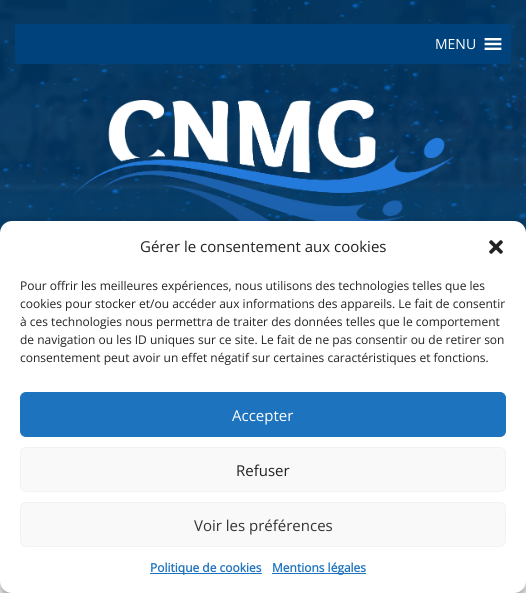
import math
import cairo

surface = cairo.ImageSurface(cairo.Format.RGB24, 526, 593)
ctx = cairo.Context(surface)
options = cairo.FontOptions()
options.set_hint_metrics(cairo.HintMetrics.OFF)
options.set_hint_style(cairo.HintStyle.NONE)
ctx.set_font_options(options)
ctx.set_miter_limit(4)


def ink(r, g, b):
    ctx.set_source_rgb(r / 255, g / 255, b / 255)


def write(x, y, s, family, size, color, bold=False, italic=False):
    ctx.select_font_face(family, cairo.FontSlant.ITALIC if italic else cairo.FontSlant.NORMAL, cairo.FontWeight.BOLD if bold else cairo.FontWeight.NORMAL)
    ctx.set_font_size(size)
    ink(*color)
    ctx.move_to(x, y)
    ctx.show_text(s)


def block(x, y, w, h, *color):
    ink(*color)
    ctx.rectangle(x, y, w, h)
    ctx.fill()


def round_path(x, y, w, h, r):
    ctx.new_sub_path()
    for i, (u, v) in enumerate([(x + w - r, y + h - r), (x + r, y + h - r), (x + r, y + r), (x + w - r, y + r)]):
        ctx.arc(u, v, r, i * math.pi / 2, (i + 1) * math.pi / 2)
    ctx.close_path()


def blur_box(x, y, w, h, r, blur, alpha):
    ctx.push_group_with_content(cairo.Content.ALPHA)
    ctx.set_operator(cairo.Operator.SOURCE)
    for i in range(15, -16, -2):
        e = blur * i / 6
        if min(w, h) + 2 * e > 0:
            ctx.set_source_rgba(0, 0, 0, alpha * math.erfc((i - 1) / 8.5) / 2)
            round_path(x - e, y - e, w + 2 * e, h + 2 * e, max(0, min(r + e + blur * .6, min(w, h) / 2 + e)))
            ctx.fill()
    ctx.mask(ctx.pop_group())


def paste(path, x, y, w, h):
    ctx.save()
    ctx.set_source_surface(cairo.ImageSurface.create_from_png(path), x, y)
    ctx.rectangle(x, y, w, h)
    ctx.fill()
    ctx.restore()


s1 = dict(family="Open Sans", size=14, color=(255, 255, 255))
s2 = dict(family="Open Sans", size=15, color=(34, 34, 34))
s3 = dict(family="Open Sans", size=12, color=(34, 34, 34))
s4 = dict(family="Open Sans", size=15, color=(255, 255, 255))
s5 = dict(family="Open Sans", size=15, color=(51, 51, 51))
s6 = dict(family="Open Sans", size=12, color=(30, 115, 190), bold=True)

ink(255, 255, 255)
ctx.paint()
paste("pic1.png", 0, 0, 526, 233)
ink(0, 67, 124)
round_path(15, 24, 496, 40, 2)
ctx.fill()
write(435, 49, "MENU", **s1)
paste("pic2.png", 484, 38, 18, 12)
paste("pic3.png", 72, 100, 383, 121)
ink(0, 0, 0)
blur_box(0, 227, 526, 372, 12, 3, 0.23)
blur_box(0, 231, 526, 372, 12, 10, 0.19)
ink(128, 128, 128)
blur_box(456, 519, 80, 60, 2, 2.5, 1)
ink(255, 255, 255)
round_path(0, 221, 526, 372, 12)
ctx.fill()
write(140, 252, "Gérer le consentement aux cookies", **s2)
paste("pic4.png", 489, 240, 14, 14)
write(20, 290, "Pour offrir les meilleures expériences, nous utilisons des technologies telles que les", **s3)
write(20, 308, "cookies pour stocker et/ou accéder aux informations des appareils. Le fait de consentir", **s3)
write(20, 326, "à ces technologies nous permettra de traiter des données telles que le comportement", **s3)
write(20, 344, "de navigation ou les ID uniques sur ce site. Le fait de ne pas consentir ou de retirer son", **s3)
write(20, 362, "consentement peut avoir un effet négatif sur certaines caractéristiques et fonctions.", **s3)
ink(30, 115, 190)
round_path(20.5, 392.5, 485, 44, 5.5)
ctx.fill_preserve()
ctx.set_line_width(1)
ctx.stroke()
write(232, 421, "Accepter", **s4)
ink(249, 249, 249)
round_path(20.5, 447.5, 485, 44, 5.5)
ctx.fill_preserve()
ink(242, 242, 242)
ctx.stroke()
write(236, 476, "Refuser", **s2)
ink(249, 249, 249)
round_path(20.5, 502.5, 485, 44, 5.5)
ctx.fill_preserve()
ink(242, 242, 242)
ctx.stroke()
write(194, 531, "Voir les préférences", **s5)
block(150, 573, 112, 1, 30, 115, 190)
write(150, 572, "Politique de cookies", **s6)
block(272, 573, 94, 1, 30, 115, 190)
write(272, 572, "Mentions légales", **s6)
surface.write_to_png("screenshot.png")
